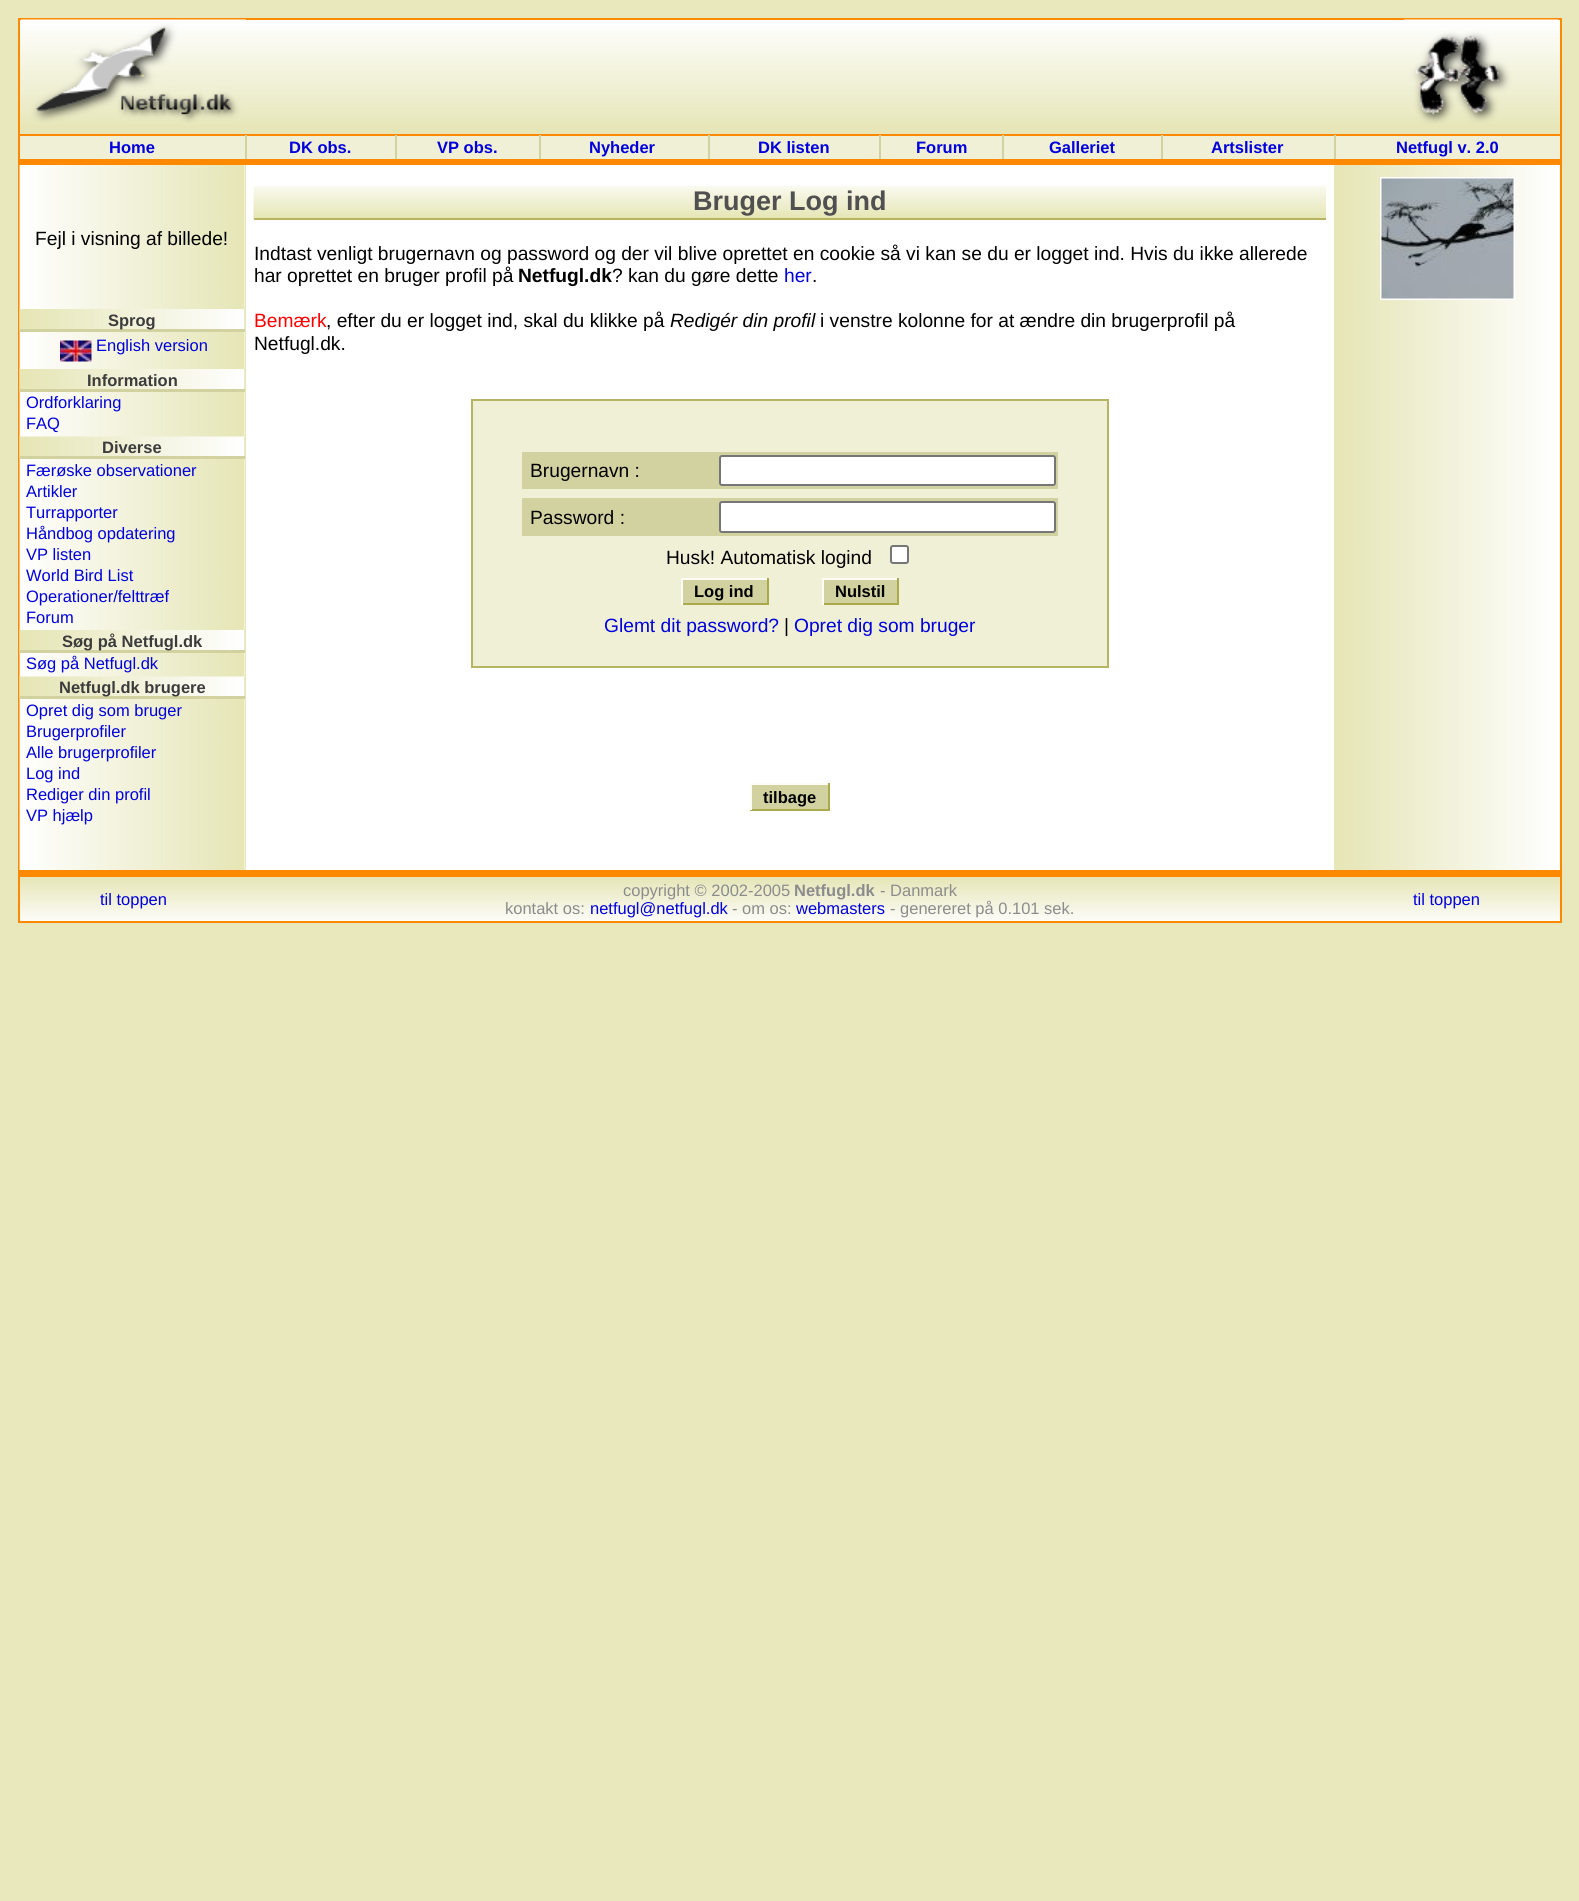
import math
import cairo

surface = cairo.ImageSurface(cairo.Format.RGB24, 1579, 1901)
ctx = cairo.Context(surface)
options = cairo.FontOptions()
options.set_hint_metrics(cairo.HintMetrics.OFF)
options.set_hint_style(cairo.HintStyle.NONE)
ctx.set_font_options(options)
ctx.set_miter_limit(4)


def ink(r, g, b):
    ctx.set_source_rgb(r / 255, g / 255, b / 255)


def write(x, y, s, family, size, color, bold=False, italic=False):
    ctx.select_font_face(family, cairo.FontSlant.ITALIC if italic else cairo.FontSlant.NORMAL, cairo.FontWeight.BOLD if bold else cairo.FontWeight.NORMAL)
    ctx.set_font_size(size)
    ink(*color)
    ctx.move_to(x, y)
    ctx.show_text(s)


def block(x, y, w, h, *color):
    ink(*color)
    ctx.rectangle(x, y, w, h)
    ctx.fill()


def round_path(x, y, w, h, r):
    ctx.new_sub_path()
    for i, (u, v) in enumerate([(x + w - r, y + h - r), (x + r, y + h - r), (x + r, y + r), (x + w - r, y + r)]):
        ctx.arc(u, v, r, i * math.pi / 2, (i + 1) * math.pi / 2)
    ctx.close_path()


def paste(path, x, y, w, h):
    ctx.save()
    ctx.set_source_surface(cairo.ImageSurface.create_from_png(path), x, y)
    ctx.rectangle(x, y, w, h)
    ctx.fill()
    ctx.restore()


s1 = dict(family="Liberation Sans", size=16.5, color=(0, 0, 220), bold=True)
s2 = dict(family="Liberation Sans", size=19.2, color=(0, 0, 0))
s3 = dict(family="Liberation Sans", size=16.5, color=(60, 60, 60), bold=True)
s4 = dict(family="Liberation Sans", size=16.5, color=(0, 0, 220))
s5 = dict(family="Liberation Sans", size=27, color=(80, 80, 80), bold=True)
s6 = dict(family="Liberation Sans", size=19.2, color=(0, 0, 0), bold=True)
s7 = dict(family="Liberation Sans", size=19.2, color=(0, 0, 220))
s8 = dict(family="Liberation Sans", size=19.2, color=(255, 0, 0))
s9 = dict(family="Liberation Sans", size=19.2, color=(0, 0, 0), italic=True)
s10 = dict(family="Liberation Sans", size=16.5, color=(0, 0, 0), bold=True)
s11 = dict(family="Liberation Sans", size=16.5, color=(140, 140, 140))
s12 = dict(family="Liberation Sans", size=16.5, color=(140, 140, 140), bold=True)

ink(232, 232, 188)
ctx.paint()
block(20, 124, 1540, 10, 230, 230, 184)
paste("pic1.png", 20, 20, 1540, 104)
block(18, 18, 1544, 2, 253, 137, 0)
block(1560, 18, 2, 116, 253, 137, 0)
block(18, 18, 2, 116, 253, 137, 0)
paste("pic2.png", 21, 19, 225, 104)
paste("pic3.png", 1404, 19, 155, 105)
block(20, 136, 1540, 23, 240, 240, 215)
block(18, 134, 1544, 2, 253, 137, 0)
block(18, 159, 1544, 2, 253, 137, 0)
block(18, 134, 2, 30, 253, 137, 0)
block(245, 135, 2, 24, 210, 210, 160)
write(109, 153, "Home", **s1)
block(395, 135, 2, 24, 210, 210, 160)
write(289, 153, "DK obs.", **s1)
block(539, 135, 2, 24, 210, 210, 160)
write(437, 153, "VP obs.", **s1)
block(708, 135, 2, 24, 210, 210, 160)
write(589, 153, "Nyheder", **s1)
block(879, 135, 2, 24, 210, 210, 160)
write(758, 153, "DK listen", **s1)
block(1002, 135, 2, 24, 210, 210, 160)
write(916, 153, "Forum", **s1)
block(1161, 135, 2, 24, 210, 210, 160)
write(1049, 153, "Galleriet", **s1)
block(1334, 135, 2, 24, 210, 210, 160)
write(1211, 153, "Artslister", **s1)
block(1560, 135, 2, 24, 253, 137, 0)
write(1396, 153, "Netfugl v. 2.0", **s1)
block(20, 161, 1542, 3, 253, 137, 0)
ctx.rectangle(19, 165, 1542, 706)
ctx.stroke()
paste("pic4.png", 19, 165, 226, 705)
block(245, 165, 1, 705, 230, 230, 182)
write(35, 245, "Fejl i visning af billede!", **s2)
block(244, 309, 1, 20, 210, 210, 160)
paste("pic5.png", 19, 309, 226, 23)
block(20, 329, 225, 3, 210, 210, 160)
write(108, 326, "Sprog", **s3)
paste("pic6.png", 60, 340, 32, 22)
write(96, 351, "English version", **s4)
block(244, 369, 1, 20, 210, 210, 160)
paste("pic5.png", 19, 369, 226, 23)
block(20, 389, 225, 3, 210, 210, 160)
write(87, 386, "Information", **s3)
write(26, 408, "Ordforklaring", **s4)
write(26, 429, "FAQ", **s4)
block(244, 437, 1, 19, 210, 210, 160)
paste("pic7.png", 19, 436, 226, 23)
block(20, 456, 225, 3, 210, 210, 160)
write(102, 453, "Diverse", **s3)
write(26, 476, "Færøske observationer", **s4)
write(26, 497, "Artikler", **s4)
write(26, 518, "Turrapporter", **s4)
write(26, 539, "Håndbog opdatering", **s4)
write(26, 560, "VP listen", **s4)
write(26, 581, "World Bird List", **s4)
write(26, 602, "Operationer/felttræf", **s4)
write(26, 623, "Forum", **s4)
block(244, 630, 1, 20, 210, 210, 160)
paste("pic5.png", 19, 630, 226, 23)
block(20, 650, 225, 3, 210, 210, 160)
write(62, 647, "Søg på Netfugl.dk", **s3)
write(26, 669, "Søg på Netfugl.dk", **s4)
block(244, 677, 1, 19, 210, 210, 160)
paste("pic7.png", 19, 676, 226, 23)
block(20, 696, 225, 3, 210, 210, 160)
write(59, 693, "Netfugl.dk brugere", **s3)
write(26, 716, "Opret dig som bruger", **s4)
write(26, 737, "Brugerprofiler", **s4)
write(26, 758, "Alle brugerprofiler", **s4)
write(26, 779, "Log ind", **s4)
write(26, 800, "Rediger din profil", **s4)
write(26, 821, "VP hjælp", **s4)
block(246, 165, 1088, 705, 255, 255, 255)
paste("pic8.png", 253, 186, 1073, 33)
block(254, 218, 1072, 2, 181, 181, 100)
write(693, 210, "Bruger Log ind", **s5)
write(254, 260, "Indtast venligt brugernavn og password og der vil blive oprettet en cookie så vi kan se du er logget ind. Hvis du ikke allerede", **s2)
write(254, 282, "har oprettet en bruger profil på", **s2)
write(518, 282, "Netfugl.dk", **s6)
write(612, 282, "? kan du gøre dette", **s2)
write(784, 282, "her", **s7)
write(812, 282, ".", **s2)
write(254, 327, "Bemærk", **s8)
write(326, 327, ", efter du er logget ind, skal du klikke på", **s2)
write(670, 327, "Redigér din profil", **s9)
write(820, 327, "i venstre kolonne for at ændre din brugerprofil på", **s2)
write(254, 350, "Netfugl.dk.", **s2)
ink(240, 240, 215)
ctx.rectangle(472, 400, 636, 267)
ctx.fill_preserve()
ink(181, 181, 100)
ctx.stroke()
block(522, 452, 536, 37, 210, 210, 160)
write(530, 477, "Brugernavn :", **s2)
ink(255, 255, 255)
round_path(720, 456, 335, 29, 2)
ctx.fill_preserve()
ink(118, 118, 118)
ctx.stroke()
block(522, 498, 536, 38, 210, 210, 160)
write(530, 524, "Password :", **s2)
ink(255, 255, 255)
round_path(720, 502, 335, 30, 2)
ctx.fill_preserve()
ink(118, 118, 118)
ctx.stroke()
write(666, 564, "Husk! Automatisk logind", **s2)
ink(255, 255, 255)
round_path(891, 546, 17, 17, 2)
ctx.fill_preserve()
ink(118, 118, 118)
ctx.stroke()
block(683, 580, 84, 23, 210, 210, 160)
block(681, 578, 87, 2, 252, 252, 245)
block(767, 578, 2, 27, 170, 170, 77)
block(681, 603, 87, 2, 170, 170, 77)
block(681, 578, 2, 27, 252, 252, 245)
write(694, 597, "Log ind", **s10)
block(824, 580, 73, 23, 210, 210, 160)
block(822, 578, 77, 2, 252, 252, 245)
block(897, 578, 2, 27, 170, 170, 77)
block(822, 603, 77, 2, 170, 170, 77)
block(822, 578, 2, 27, 252, 252, 245)
write(835, 597, "Nulstil", **s10)
write(604, 632, "Glemt dit password?", **s7)
write(784, 632, "|", **s2)
write(794, 632, "Opret dig som bruger", **s7)
block(752, 785, 76, 24, 210, 210, 160)
block(750, 783, 80, 2, 252, 252, 245)
block(828, 783, 2, 27, 170, 170, 77)
block(750, 809, 80, 2, 170, 170, 77)
block(750, 783, 2, 27, 252, 252, 245)
write(763, 803, "tilbage", **s10)
block(1559, 165, 1, 705, 249, 249, 241)
paste("pic9.png", 1336, 165, 223, 705)
block(1334, 165, 2, 705, 230, 230, 182)
ctx.rectangle(1381, 178, 133, 121)
ink(255, 255, 255)
ctx.stroke()
paste("pic10.png", 1381, 178, 133, 121)
block(1560, 872, 2, 3, 253, 137, 0)
block(18, 872, 1542, 3, 253, 137, 0)
paste("pic11.png", 20, 877, 1540, 44)
ctx.rectangle(19, 876, 1542, 46)
ctx.stroke()
write(100, 905, "til toppen", **s4)
write(623, 896, "copyright © 2002-2005", **s11)
write(794, 896, "Netfugl.dk", **s12)
write(880, 896, "- Danmark", **s11)
write(505, 914, "kontakt os:", **s11)
write(590, 914, "netfugl@netfugl.dk", **s4)
write(732, 914, "- om os:", **s11)
write(796, 914, "webmasters", **s4)
write(890, 914, "- genereret på 0.101 sek.", **s11)
write(1413, 905, "til toppen", **s4)
surface.write_to_png("screenshot.png")
